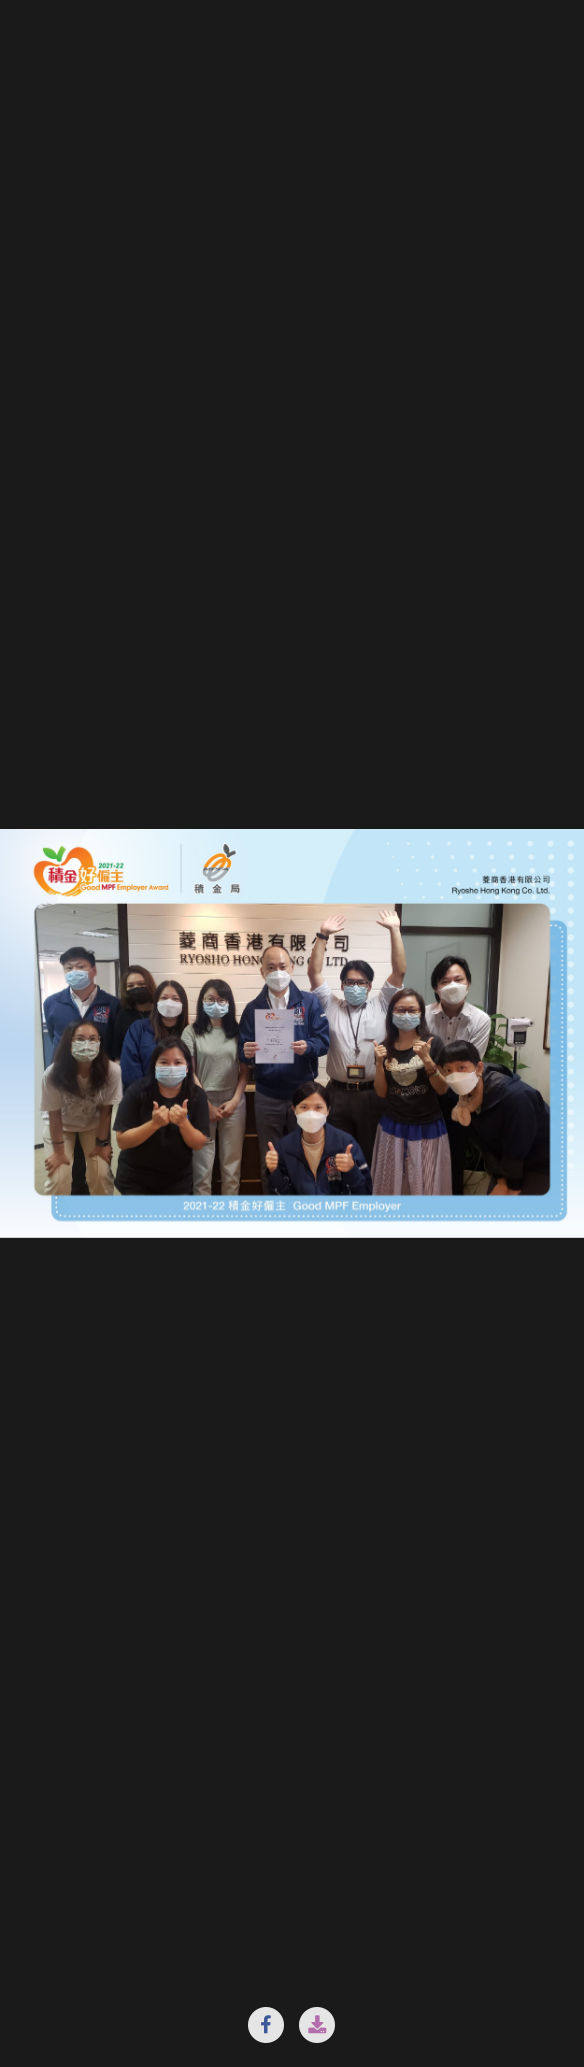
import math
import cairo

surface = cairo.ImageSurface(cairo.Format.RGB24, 584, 2067)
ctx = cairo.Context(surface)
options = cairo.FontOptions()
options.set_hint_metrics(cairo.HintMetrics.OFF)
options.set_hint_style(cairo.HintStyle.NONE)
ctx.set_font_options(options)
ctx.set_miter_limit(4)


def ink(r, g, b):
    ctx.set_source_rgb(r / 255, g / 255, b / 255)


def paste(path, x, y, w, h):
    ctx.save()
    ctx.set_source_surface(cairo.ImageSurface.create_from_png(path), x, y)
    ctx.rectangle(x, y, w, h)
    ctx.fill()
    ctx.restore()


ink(26, 26, 26)
ctx.paint()
paste("pic1.png", 0, 829, 584, 409)
ink(230, 229, 229)
ctx.arc(266, 2025, 18, 0, 2 * math.pi)
ctx.fill()
paste("pic2.png", 261, 2015, 10, 19)
ctx.arc(317, 2025, 18, 0, 2 * math.pi)
ctx.fill()
paste("pic3.png", 308, 2015, 19, 19)
surface.write_to_png("screenshot.png")
